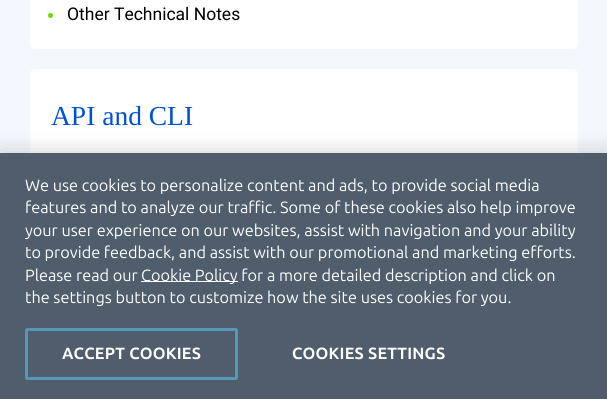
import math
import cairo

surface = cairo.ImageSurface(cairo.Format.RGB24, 607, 399)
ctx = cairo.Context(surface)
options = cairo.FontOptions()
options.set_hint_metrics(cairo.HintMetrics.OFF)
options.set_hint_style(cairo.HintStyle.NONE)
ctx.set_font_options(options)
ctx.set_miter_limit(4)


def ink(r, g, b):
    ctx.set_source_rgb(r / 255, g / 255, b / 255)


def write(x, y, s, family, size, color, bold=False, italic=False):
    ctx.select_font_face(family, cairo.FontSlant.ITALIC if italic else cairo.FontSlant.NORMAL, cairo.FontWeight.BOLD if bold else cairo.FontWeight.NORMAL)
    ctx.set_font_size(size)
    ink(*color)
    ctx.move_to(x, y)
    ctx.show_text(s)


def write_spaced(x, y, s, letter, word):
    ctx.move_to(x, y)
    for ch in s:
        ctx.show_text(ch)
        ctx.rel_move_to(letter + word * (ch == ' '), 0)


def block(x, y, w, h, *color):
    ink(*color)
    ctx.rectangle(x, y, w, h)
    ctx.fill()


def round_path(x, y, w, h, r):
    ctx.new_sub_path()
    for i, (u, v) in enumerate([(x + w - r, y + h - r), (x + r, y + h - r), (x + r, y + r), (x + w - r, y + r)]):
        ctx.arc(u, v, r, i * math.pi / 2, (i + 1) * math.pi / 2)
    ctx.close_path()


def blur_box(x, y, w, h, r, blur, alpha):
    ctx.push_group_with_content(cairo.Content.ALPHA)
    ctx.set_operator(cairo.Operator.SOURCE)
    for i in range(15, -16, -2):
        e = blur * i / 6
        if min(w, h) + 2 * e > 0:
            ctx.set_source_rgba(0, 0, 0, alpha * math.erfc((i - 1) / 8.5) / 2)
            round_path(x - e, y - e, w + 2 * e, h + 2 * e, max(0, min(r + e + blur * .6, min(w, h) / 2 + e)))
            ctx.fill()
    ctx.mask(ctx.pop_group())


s1 = dict(family="Roboto", size=17.5, color=(0, 0, 0))
s2 = dict(family="Liberation Serif", size=27.5, color=(0, 81, 211))
s3 = dict(family="Ubuntu", size=16.25, color=(255, 255, 255))

ink(244, 247, 253)
ctx.paint()
ink(255, 255, 255)
round_path(30, -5, 548, 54, 5)
ctx.fill()
ink(107, 220, 5)
ctx.arc(50.5, 15.5, 2.5, 0, 2 * math.pi)
ctx.fill()
write(67, 20, "Other Technical Notes", **s1)
ink(255, 255, 255)
round_path(30, 69, 548, 177, 5)
ctx.fill()
write(51, 125, "API and CLI", **s2)
ink(0, 0, 0)
blur_box(0, 153, 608, 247, 0, 11, 0.2)
block(0, 153, 607, 246, 79, 93, 108)
write(25, 191, "We use cookies to personalize content and ads, to provide social media", **s3)
write(25, 213, "features and to analyze our traffic. Some of these cookies also help improve", **s3)
write(25, 236, "your user experience on our websites, assist with navigation and your ability", **s3)
write(25, 258, "to provide feedback, and assist with our promotional and marketing efforts.", **s3)
write(25, 281, "Please read our", **s3)
block(141, 281, 97, 1, 255, 255, 255)
write(141, 281, "Cookie Policy for a more detailed description and click on", **s3)
write(25, 303, "the settings button to customize how the site uses cookies for you.", **s3)
round_path(26.5, 329.5, 210, 49, 1)
ink(86, 153, 182)
ctx.set_line_width(3)
ctx.stroke()
ctx.select_font_face("Ubuntu", cairo.FontSlant.NORMAL, cairo.FontWeight.BOLD)
ink(255, 255, 255)
write_spaced(62, 359, "ACCEPT COOKIES", 0.2, 0)
write_spaced(292, 359, "COOKIES SETTINGS", 0.2, 0)
surface.write_to_png("screenshot.png")
